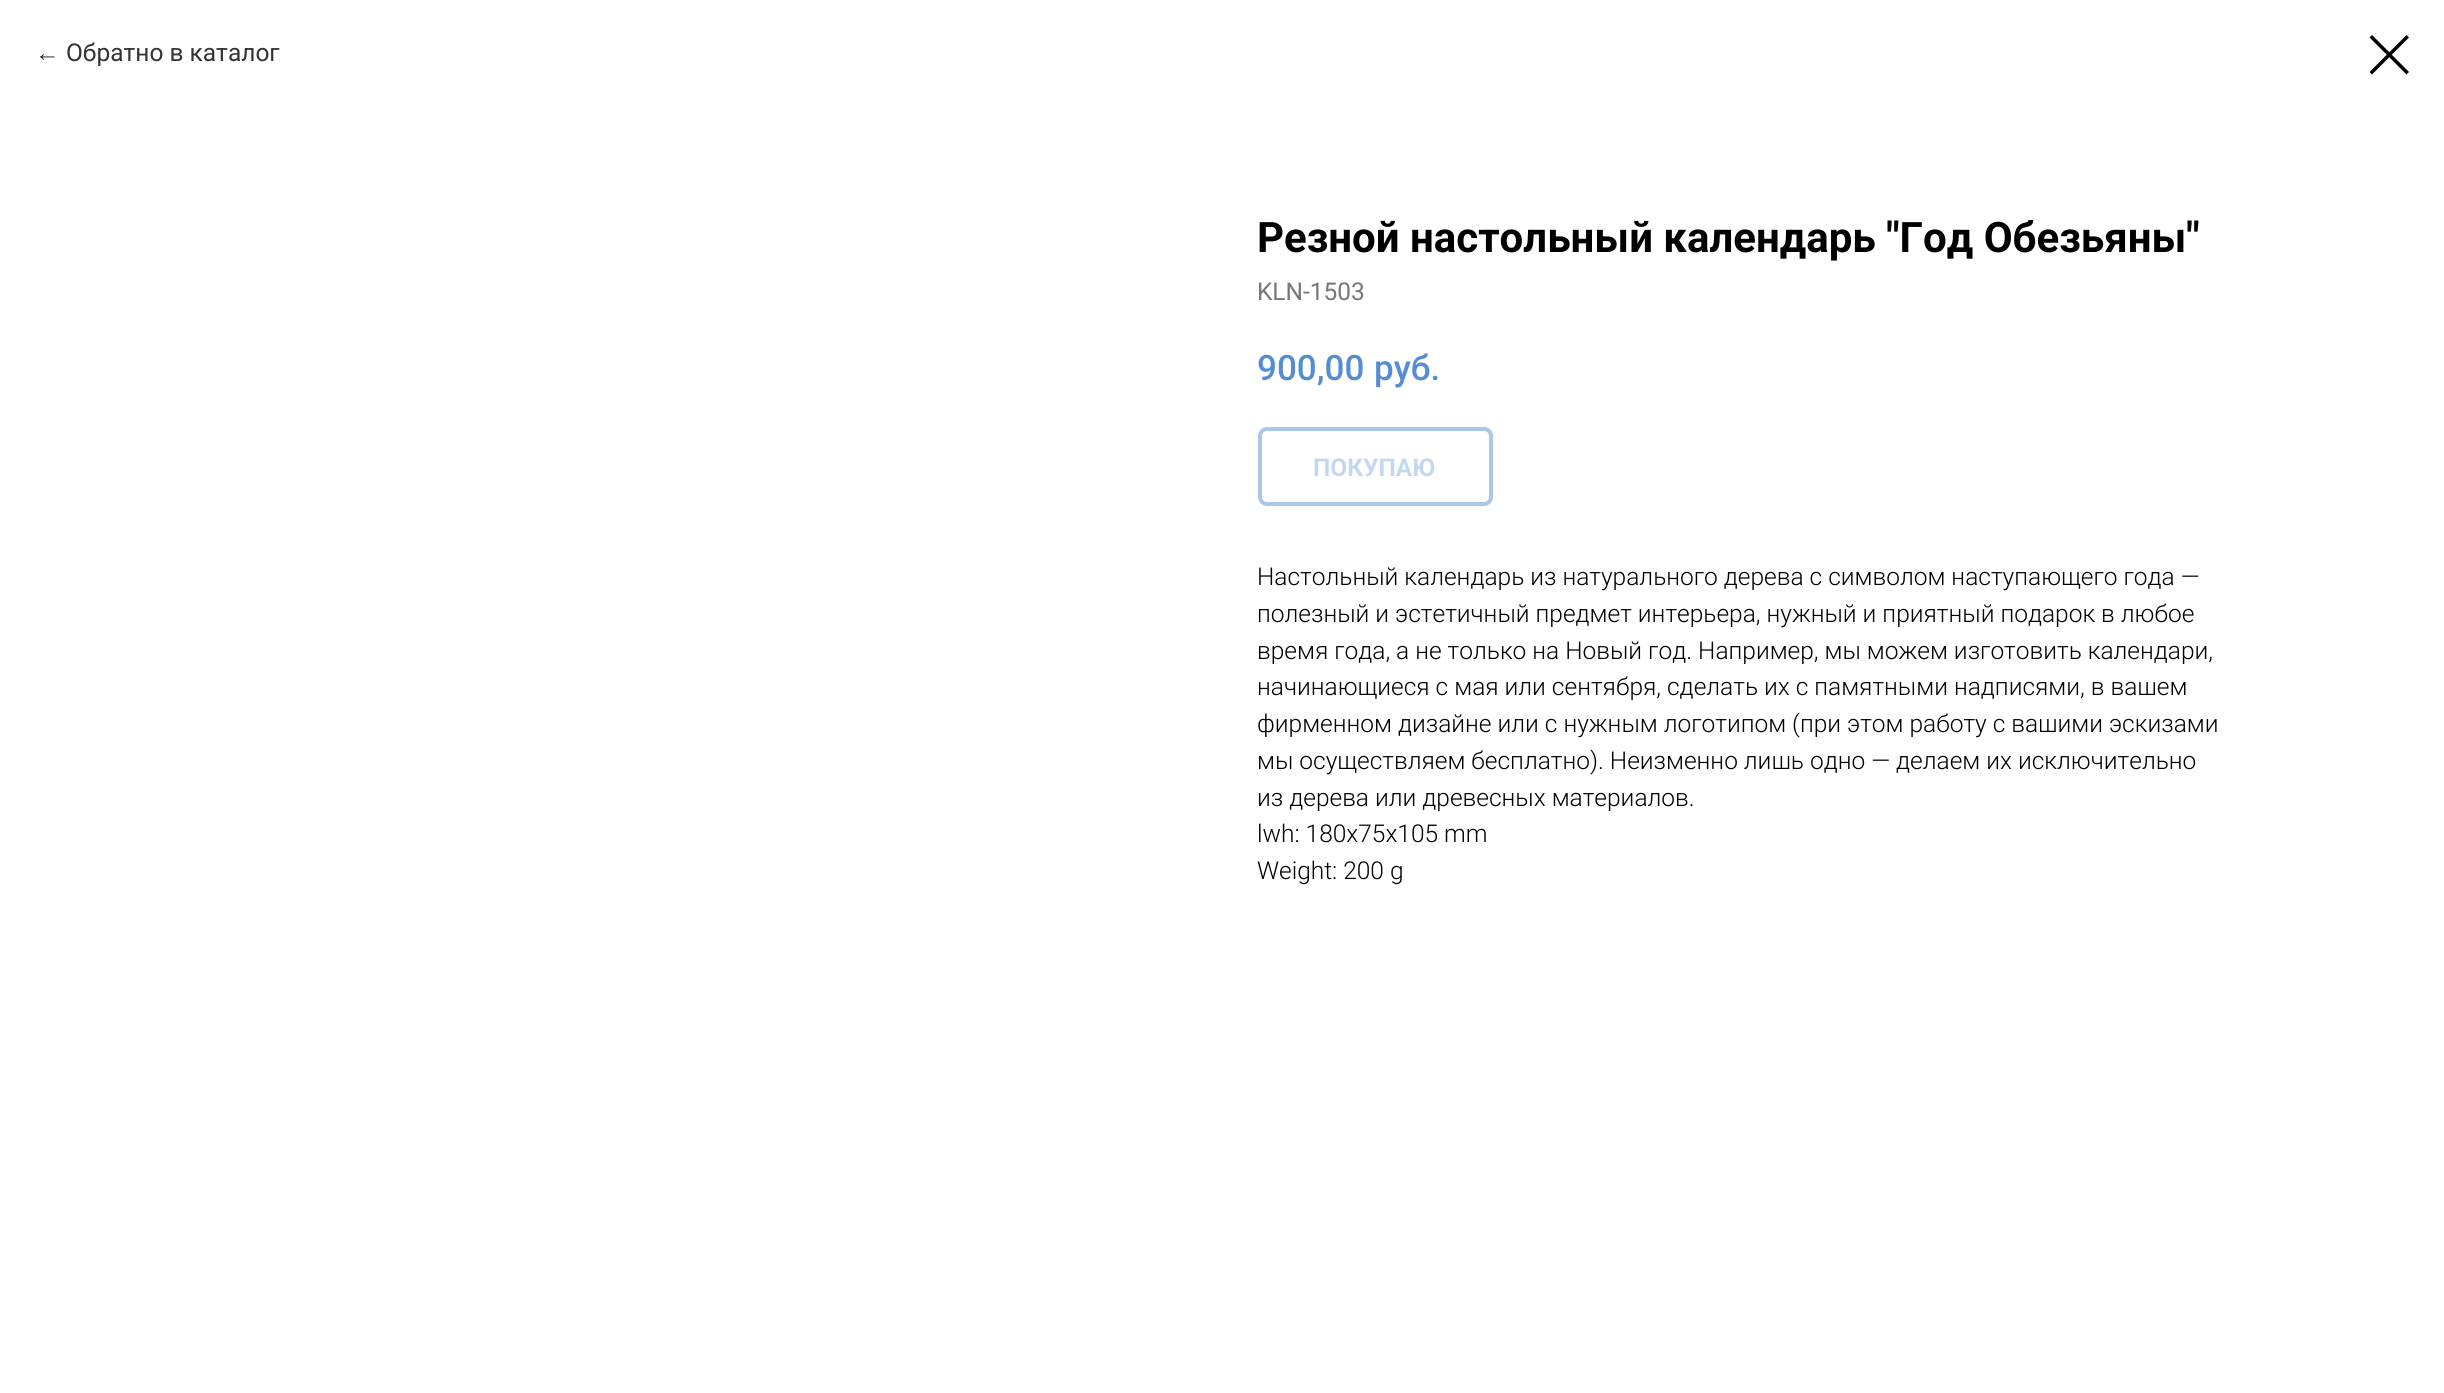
import math
import cairo

surface = cairo.ImageSurface(cairo.Format.RGB24, 2444, 1393)
ctx = cairo.Context(surface)
options = cairo.FontOptions()
options.set_hint_metrics(cairo.HintMetrics.OFF)
options.set_hint_style(cairo.HintStyle.NONE)
ctx.set_font_options(options)
ctx.set_miter_limit(4)


def ink(r, g, b):
    ctx.set_source_rgb(r / 255, g / 255, b / 255)


def write(x, y, s, family, size, color, bold=False, italic=False):
    ctx.select_font_face(family, cairo.FontSlant.ITALIC if italic else cairo.FontSlant.NORMAL, cairo.FontWeight.BOLD if bold else cairo.FontWeight.NORMAL)
    ctx.set_font_size(size)
    ink(*color)
    ctx.move_to(x, y)
    ctx.show_text(s)


def round_path(x, y, w, h, r):
    ctx.new_sub_path()
    for i, (u, v) in enumerate([(x + w - r, y + h - r), (x + r, y + h - r), (x + r, y + r), (x + w - r, y + r)]):
        ctx.arc(u, v, r, i * math.pi / 2, (i + 1) * math.pi / 2)
    ctx.close_path()


s1 = dict(family="Liberation Sans", size=24.5, color=(51, 51, 51))
s2 = dict(family="Roboto", size=24.5, color=(51, 51, 51))
s3 = dict(family="Roboto", size=42, color=(0, 0, 0), bold=True)
s4 = dict(family="Roboto", size=24.5, color=(119, 119, 119))
s5 = dict(family="Roboto Medium", size=35, color=(84, 141, 212))
s6 = dict(family="Roboto", size=24.5, color=(195, 215, 240), bold=True)
s7 = dict(family="Roboto Light", size=24.5, color=(0, 0, 0))

ink(255, 255, 255)
ctx.paint()
write(35, 61, "←", **s1)
write(66, 61, "Обратно в каталог", **s2)
ink(0, 0, 0)
ctx.set_fill_rule(cairo.FillRule.EVEN_ODD)
ctx.new_path()
ctx.move_to(2369.5, 37.5)
ctx.line_to(2372, 35)
ctx.line_to(2409, 72)
ctx.line_to(2406.5, 74.5)
ctx.close_path()
ctx.fill()
ctx.new_path()
ctx.move_to(2406.5, 35)
ctx.line_to(2409, 37.5)
ctx.line_to(2372, 74.5)
ctx.line_to(2369.5, 72)
ctx.close_path()
ctx.fill()
write(1257, 252, "Резной настольный календарь \"Год Обезьяны\"", **s3)
write(1257, 300, "KLN-1503", **s4)
write(1257, 380, "900,00", **s5)
write(1374, 380, "руб.", **s5)
round_path(1260, 429, 231, 75, 7)
ink(170, 198, 234)
ctx.set_line_width(4)
ctx.stroke()
write(1313, 476, "ПОКУПАЮ", **s6)
write(1257, 585, "Настольный календарь из натурального дерева с символом наступающего года —", **s7)
write(1257, 622, "полезный и эстетичный предмет интерьера, нужный и приятный подарок в любое", **s7)
write(1257, 659, "время года, а не только на Новый год. Например, мы можем изготовить календари,", **s7)
write(1257, 695, "начинающиеся с мая или сентября, сделать их с памятными надписями, в вашем", **s7)
write(1257, 732, "фирменном дизайне или с нужным логотипом (при этом работу с вашими эскизами", **s7)
write(1257, 769, "мы осуществляем бесплатно). Неизменно лишь одно — делаем их исключительно", **s7)
write(1257, 806, "из дерева или древесных материалов.", **s7)
write(1257, 842, "lwh: 180x75x105 mm", **s7)
write(1257, 879, "Weight: 200 g", **s7)
surface.write_to_png("screenshot.png")
